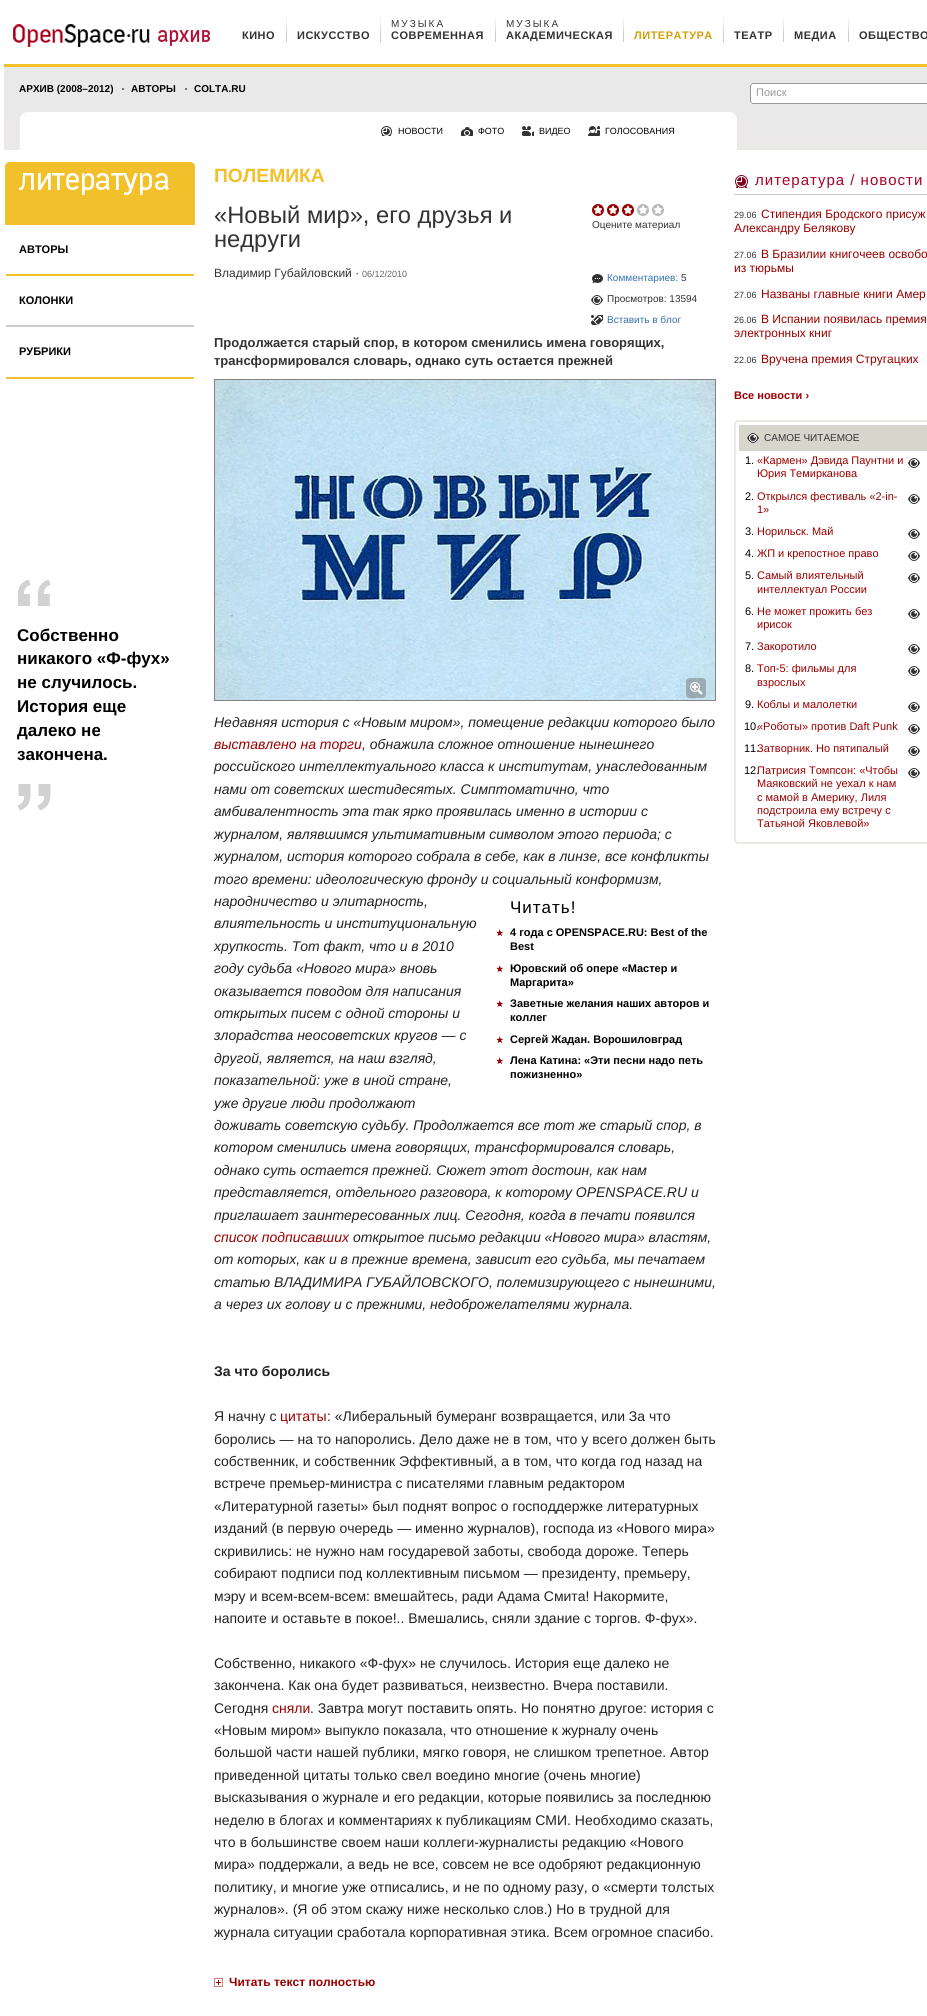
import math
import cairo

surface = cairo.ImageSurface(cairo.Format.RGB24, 927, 2016)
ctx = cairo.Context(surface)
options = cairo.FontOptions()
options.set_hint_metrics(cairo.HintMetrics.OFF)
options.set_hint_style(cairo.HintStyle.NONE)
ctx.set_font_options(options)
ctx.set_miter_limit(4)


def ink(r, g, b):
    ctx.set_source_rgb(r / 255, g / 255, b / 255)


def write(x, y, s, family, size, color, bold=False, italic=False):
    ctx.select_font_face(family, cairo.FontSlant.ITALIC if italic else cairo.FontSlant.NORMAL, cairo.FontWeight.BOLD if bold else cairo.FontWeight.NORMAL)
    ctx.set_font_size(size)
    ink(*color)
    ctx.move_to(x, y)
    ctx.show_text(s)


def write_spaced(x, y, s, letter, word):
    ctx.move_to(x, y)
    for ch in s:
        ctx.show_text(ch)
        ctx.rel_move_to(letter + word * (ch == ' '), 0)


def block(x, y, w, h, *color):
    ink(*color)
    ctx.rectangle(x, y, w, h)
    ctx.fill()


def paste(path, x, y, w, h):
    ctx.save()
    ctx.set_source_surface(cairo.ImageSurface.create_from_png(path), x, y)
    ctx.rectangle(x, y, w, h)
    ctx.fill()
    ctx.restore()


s1 = dict(family="Liberation Sans", size=10, color=(0, 0, 0), bold=True)
s2 = dict(family="Liberation Sans", size=11, color=(153, 153, 153))
s3 = dict(family="Liberation Sans", size=9, color=(0, 0, 0))
s4 = dict(family="Liberation Sans", size=11, color=(0, 0, 0), bold=True)
s5 = dict(family="Liberation Sans", size=17, color=(0, 0, 0), bold=True)
s6 = dict(family="Liberation Sans", size=19.25, color=(242, 192, 43), bold=True)
s7 = dict(family="Liberation Sans", size=23.7, color=(51, 51, 51))
s8 = dict(family="Liberation Sans", size=10, color=(51, 51, 51))
s9 = dict(family="Liberation Sans", size=12, color=(51, 51, 51))
s10 = dict(family="Liberation Sans", size=9, color=(102, 102, 102))
s11 = dict(family="Liberation Sans", size=10, color=(52, 113, 173))
s12 = dict(family="Liberation Sans", size=13, color=(51, 51, 51), bold=True)
s13 = dict(family="Liberation Sans", size=14, color=(35, 35, 35), italic=True)
s14 = dict(family="Liberation Sans", size=14, color=(153, 0, 0), italic=True)
s15 = dict(family="Liberation Sans", size=14, color=(35, 35, 35), bold=True)
s16 = dict(family="Liberation Sans", size=14, color=(35, 35, 35))
s17 = dict(family="Liberation Sans", size=14, color=(153, 0, 0))
s18 = dict(family="Liberation Sans", size=12, color=(153, 0, 0), bold=True)
s19 = dict(family="Liberation Sans", size=9, color=(51, 51, 51))
s20 = dict(family="Liberation Sans", size=12, color=(153, 0, 0))
s21 = dict(family="Liberation Sans", size=11, color=(153, 0, 0), bold=True)
s22 = dict(family="Liberation Sans", size=11, color=(0, 0, 0))
s23 = dict(family="Liberation Sans", size=11, color=(153, 0, 0))

ink(255, 255, 255)
ctx.paint()
paste("pic1.png", 13, 24, 197, 23)
ctx.select_font_face("Liberation Sans", cairo.FontSlant.NORMAL, cairo.FontWeight.BOLD)
ctx.set_font_size(11)
ink(51, 51, 51)
write_spaced(242, 39, "КИНО", 0.5, 0)
paste("pic2.png", 286, 17, 1, 25)
write_spaced(297, 39, "ИСКУССТВО", 0.5, 0)
paste("pic2.png", 380, 17, 1, 25)
ctx.select_font_face("Liberation Sans")
ctx.set_font_size(10)
write_spaced(391, 27, "МУЗЫКА", 2, 0)
ctx.select_font_face("Liberation Sans", cairo.FontSlant.NORMAL, cairo.FontWeight.BOLD)
ctx.set_font_size(11)
write_spaced(391, 39, "СОВРЕМЕННАЯ", 0.5, 0)
paste("pic2.png", 495, 17, 1, 25)
ctx.select_font_face("Liberation Sans")
ctx.set_font_size(10)
write_spaced(506, 27, "МУЗЫКА", 2, 0)
ctx.select_font_face("Liberation Sans", cairo.FontSlant.NORMAL, cairo.FontWeight.BOLD)
ctx.set_font_size(11)
write_spaced(506, 39, "АКАДЕМИЧЕСКАЯ", 0.5, 0)
paste("pic2.png", 623, 17, 1, 25)
ink(209, 160, 14)
write_spaced(634, 39, "ЛИТЕРАТУРА", 0.5, 0)
paste("pic2.png", 723, 17, 1, 25)
ink(51, 51, 51)
write_spaced(734, 39, "ТЕАТР", 0.5, 0)
paste("pic2.png", 783, 17, 1, 25)
write_spaced(794, 39, "МЕДИА", 0.5, 0)
paste("pic2.png", 848, 17, 1, 25)
write_spaced(859, 39, "ОБЩЕСТВО", 0.5, 0)
block(4, 64, 923, 3, 242, 192, 43)
paste("pic3.png", 4, 67, 923, 83)
write(19, 92, "АРХИВ (2008–2012)", **s1)
write(131, 92, "АВТОРЫ", **s1)
block(122, 88, 2, 2, 116, 116, 116)
write(194, 92, "COLTA.RU", **s1)
block(185, 88, 2, 2, 116, 116, 116)
paste("pic4.png", 750, 83, 177, 21)
write(756, 96, "Поиск", **s2)
paste("pic5.png", 381, 126, 11, 10)
write(398, 134, "НОВОСТИ", **s3)
paste("pic6.png", 461, 127, 12, 9)
write(478, 134, "ФОТО", **s3)
paste("pic7.png", 522, 126, 12, 10)
write(539, 134, "ВИДЕО", **s3)
paste("pic8.png", 588, 126, 12, 10)
write(605, 134, "ГОЛОСОВАНИЯ", **s3)
paste("pic9.png", 5, 162, 190, 34)
block(5, 196, 190, 29, 242, 192, 43)
block(6, 274, 188, 2, 242, 192, 43)
write(19, 253, "АВТОРЫ", **s4)
block(6, 325, 188, 2, 204, 204, 204)
write(19, 304, "КОЛОНКИ", **s4)
block(6, 377, 188, 2, 242, 192, 43)
write(19, 355, "РУБРИКИ", **s4)
paste("pic10.png", 17, 579, 34, 27)
paste("pic11.png", 17, 784, 34, 27)
write(17, 641, "Собственно", **s5)
write(17, 664, "никакого «Ф-фух»", **s5)
write(17, 688, "не случилось.", **s5)
write(17, 712, "История еще", **s5)
write(17, 736, "далеко не", **s5)
write(17, 760, "закончена.", **s5)
write(214, 182, "ПОЛЕМИКА", **s6)
write(214, 223, "«Новый мир», его друзья и", **s7)
write(214, 247, "недруги", **s7)
block(637, 204, 27, 12, 185, 185, 185)
block(592, 204, 42, 12, 153, 0, 0)
paste("pic12.png", 592, 204, 15, 12)
paste("pic12.png", 607, 204, 15, 12)
paste("pic12.png", 622, 204, 15, 12)
paste("pic13.png", 637, 204, 15, 12)
paste("pic13.png", 652, 204, 15, 12)
write(592, 228, "Оцените материал", **s8)
write(214, 277, "Владимир Губайловcкий ·", **s9)
write(362, 277, "06/12/2010", **s10)
paste("pic14.png", 592, 274, 11, 9)
write(607, 281, "Комментариев:", **s11)
write(681, 281, "5", **s8)
paste("pic15.png", 591, 295, 12, 10)
write(607, 302, "Просмотров: 13594", **s8)
paste("pic16.png", 591, 315, 12, 10)
write(607, 323, "Вставить в блог", **s11)
write(214, 347, "Продолжается старый спор, в котором сменились имена говорящих,", **s12)
write(214, 365, "трансформировался словарь, однако суть остается прежней", **s12)
ctx.rectangle(214.5, 379.5, 501, 321)
ink(131, 131, 131)
ctx.set_line_width(1)
ctx.stroke()
paste("pic17.png", 215, 380, 500, 320)
paste("pic18.png", 686, 678, 20, 20)
write(214, 727, "Недавняя история с «Новым миром», помещение редакции которого было", **s13)
write(214, 749, "выставлено на торги", **s14)
write(362, 749, ", обнажила сложное отношение нынешнего", **s13)
write(214, 771, "российского интеллектуального класса к институтам, унаследованным", **s13)
write(214, 794, "нами от советских шестидесятых. Симптоматично, что", **s13)
write(214, 816, "амбивалентность эта так ярко проявилась именно в истории с", **s13)
write(214, 839, "журналом, являвшимся ультимативным символом этого периода; с", **s13)
write(214, 861, "журналом, история которого собрала в себе, как в линзе, все конфликты", **s13)
write(214, 884, "того времени: идеологическую фронду и социальный конформизм,", **s13)
write(214, 906, "народничество и элитарность,", **s13)
ctx.select_font_face("Liberation Sans")
ctx.set_font_size(17)
ink(0, 0, 0)
write_spaced(510, 913, "Читать!", 1, 0)
paste("pic19.png", 496, 929, 7, 7)
write(510, 936, "4 года с OPENSPACE.RU: Best of the", **s4)
write(510, 950, "Best", **s4)
paste("pic19.png", 496, 965, 7, 7)
write(510, 972, "Юровский об опере «Мастер и", **s4)
write(510, 986, "Маргарита»", **s4)
paste("pic19.png", 496, 1000, 7, 7)
write(510, 1007, "Заветные желания наших авторов и", **s4)
write(510, 1021, "коллег", **s4)
paste("pic19.png", 496, 1036, 7, 7)
write(510, 1043, "Сергей Жадан. Ворошиловград", **s4)
paste("pic19.png", 496, 1057, 7, 7)
write(510, 1064, "Лена Катина: «Эти песни надо петь", **s4)
write(510, 1078, "пожизненно»", **s4)
write(214, 928, "влиятельность и институциональную", **s13)
write(214, 951, "хрупкость. Тот факт, что и в 2010", **s13)
write(214, 973, "году судьба «Нового мира» вновь", **s13)
write(214, 996, "оказывается поводом для написания", **s13)
write(214, 1018, "открытых писем с одной стороны и", **s13)
write(214, 1040, "злорадства неосоветских кругов — с", **s13)
write(214, 1063, "другой, является, на наш взгляд,", **s13)
write(214, 1085, "показательной: уже в иной стране,", **s13)
write(214, 1108, "уже другие люди продолжают", **s13)
write(214, 1130, "доживать советскую судьбу. Продолжается все тот же старый спор, в", **s13)
write(214, 1152, "котором сменились имена говорящих, трансформировался словарь,", **s13)
write(214, 1175, "однако суть остается прежней. Сюжет этот достоин, как нам", **s13)
write(214, 1197, "представляется, отдельного разговора, к которому OPENSPACE.RU и", **s13)
write(214, 1220, "приглашает заинтересованных лиц. Сегодня, когда в печати появился", **s13)
write(214, 1242, "список подписавших", **s14)
write(353, 1242, "открытое письмо редакции «Нового мира» властям,", **s13)
write(214, 1264, "от которых, как и в прежние времена, зависит его судьба, мы печатаем", **s13)
write(214, 1287, "статью ВЛАДИМИРА ГУБАЙЛОВСКОГО, полемизирующего с нынешними,", **s13)
write(214, 1309, "а через их голову и с прежними, недоброжелателями журнала.", **s13)
write(214, 1376, "За что боролись", **s15)
write(214, 1421, "Я начну с", **s16)
write(280, 1421, "цитаты", **s17)
write(327, 1421, ": «Либеральный бумеранг возвращается, или За что", **s16)
write(214, 1444, "боролись — на то напоролись. Дело даже не в том, что у всего должен быть", **s16)
write(214, 1466, "собственник, и собственник Эффективный, а в том, что когда год назад на", **s16)
write(214, 1488, "встрече премьер-министра с писателями главным редактором", **s16)
write(214, 1511, "«Литературной газеты» был поднят вопрос о господдержке литературных", **s16)
write(214, 1533, "изданий (в первую очередь — именно журналов), господа из «Нового мира»", **s16)
write(214, 1556, "скривились: не нужно нам государевой заботы, свобода дороже. Теперь", **s16)
write(214, 1578, "собирают подписи под коллективным письмом — президенту, премьеру,", **s16)
write(214, 1601, "мэру и всем-всем-всем: вмешайтесь, ради Адама Смита! Накормите,", **s16)
write(214, 1623, "напоите и оставьте в покое!.. Вмешались, сняли здание с торгов. Ф-фух».", **s16)
write(214, 1668, "Собственно, никакого «Ф-фух» не случилось. История еще далеко не", **s16)
write(214, 1690, "закончена. Как она будет развиваться, неизвестно. Вчера поставили.", **s16)
write(214, 1713, "Сегодня", **s16)
write(272, 1713, "сняли", **s17)
write(310, 1713, ". Завтра могут поставить опять. Но понятно другое: история с", **s16)
write(214, 1735, "«Новым миром» выпукло показала, что отношение к журналу очень", **s16)
write(214, 1757, "большой части нашей публики, мягко говоря, не слишком трепетное. Автор", **s16)
write(214, 1780, "приведенной цитаты только свел воедино многие (очень многие)", **s16)
write(214, 1802, "высказывания о журнале и его редакции, которые появились за последнюю", **s16)
write(214, 1825, "неделю в блогах и комментариях к публикациям СМИ. Необходимо сказать,", **s16)
write(214, 1847, "что в большинстве своем наши коллеги-журналисты редакцию «Нового", **s16)
write(214, 1869, "мира» поддержали, а ведь не все, совсем не все одобряют редакционную", **s16)
write(214, 1892, "политику, и многие уже отписались, и не по одному разу, о «смерти толстых", **s16)
write(214, 1914, "журналов». (Я об этом скажу ниже несколько слов.) Но в трудной для", **s16)
write(214, 1937, "журнала ситуации сработала корпоративная этика. Всем огромное спасибо.", **s16)
paste("pic20.png", 214, 1978, 9, 9)
write(229, 1986, "Читать текст полностью", **s18)
block(734, 194, 193, 1, 204, 204, 204)
paste("pic21.png", 735, 175, 13, 13)
ctx.select_font_face("Liberation Sans")
ctx.set_font_size(15)
ink(170, 0, 38)
write_spaced(755, 185, "литература / новости", 1, 0)
write(734, 218, "29.06", **s19)
write(761, 218, "Стипендия Бродского присуж", **s20)
write(734, 232, "Александру Белякову", **s20)
write(734, 258, "27.06", **s19)
write(761, 258, "В Бразилии книгочеев освобо", **s20)
write(734, 272, "из тюрьмы", **s20)
write(734, 298, "27.06", **s19)
write(761, 298, "Названы главные книги Амер", **s20)
write(734, 323, "26.06", **s19)
write(761, 323, "В Испании появилась премия", **s20)
write(734, 337, "электронных книг", **s20)
write(734, 363, "22.06", **s19)
write(761, 363, "Вручена премия Стругацких", **s20)
write(734, 399, "Все новости ›", **s21)
paste("pic22.png", 734, 420, 193, 5)
paste("pic23.png", 734, 425, 193, 419)
paste("pic24.png", 739, 425, 188, 26)
write(764, 441, "САМОЕ ЧИТАЕМОЕ", **s8)
write(745, 464, "1.", **s22)
write(757, 464, "«Кармен» Дэвида Паунтни и", **s23)
write(757, 477, "Юрия Темирканова", **s23)
paste("pic25.png", 908, 458, 12, 10)
write(745, 500, "2.", **s22)
write(757, 500, "Открылся фестиваль «2-in-", **s23)
write(757, 513, "1»", **s23)
paste("pic25.png", 908, 494, 12, 10)
write(745, 535, "3.", **s22)
write(757, 535, "Норильск. Май", **s23)
paste("pic25.png", 908, 529, 12, 10)
write(745, 557, "4.", **s22)
write(757, 557, "ЖП и крепостное право", **s23)
paste("pic25.png", 908, 551, 12, 10)
write(745, 579, "5.", **s22)
write(757, 579, "Самый влиятельный", **s23)
write(757, 593, "интеллектуал России", **s23)
paste("pic25.png", 908, 573, 12, 10)
write(745, 615, "6.", **s22)
write(757, 615, "Не может прожить без", **s23)
write(757, 628, "ирисок", **s23)
paste("pic25.png", 908, 609, 12, 10)
write(745, 650, "7.", **s22)
write(757, 650, "Закоротило", **s23)
paste("pic25.png", 908, 644, 12, 10)
write(745, 672, "8.", **s22)
write(757, 672, "Топ-5: фильмы для", **s23)
write(757, 686, "взрослых", **s23)
paste("pic25.png", 908, 666, 12, 10)
write(745, 708, "9.", **s22)
write(757, 708, "Коблы и малолетки", **s23)
paste("pic25.png", 908, 702, 12, 10)
write(744, 730, "10.", **s22)
write(757, 730, "«Роботы» против Daft Punk", **s23)
paste("pic25.png", 908, 724, 12, 10)
write(744, 752, "11.", **s22)
write(757, 752, "Затворник. Но пятипалый", **s23)
paste("pic25.png", 908, 746, 12, 10)
write(744, 774, "12.", **s22)
write(757, 774, "Патрисия Томпсон: «Чтобы", **s23)
write(757, 787, "Маяковский не уехал к нам", **s23)
write(757, 801, "с мамой в Америку, Лиля", **s23)
write(757, 814, "подстроила ему встречу с", **s23)
write(757, 827, "Татьяной Яковлевой»", **s23)
paste("pic25.png", 908, 768, 12, 10)
surface.write_to_png("screenshot.png")
